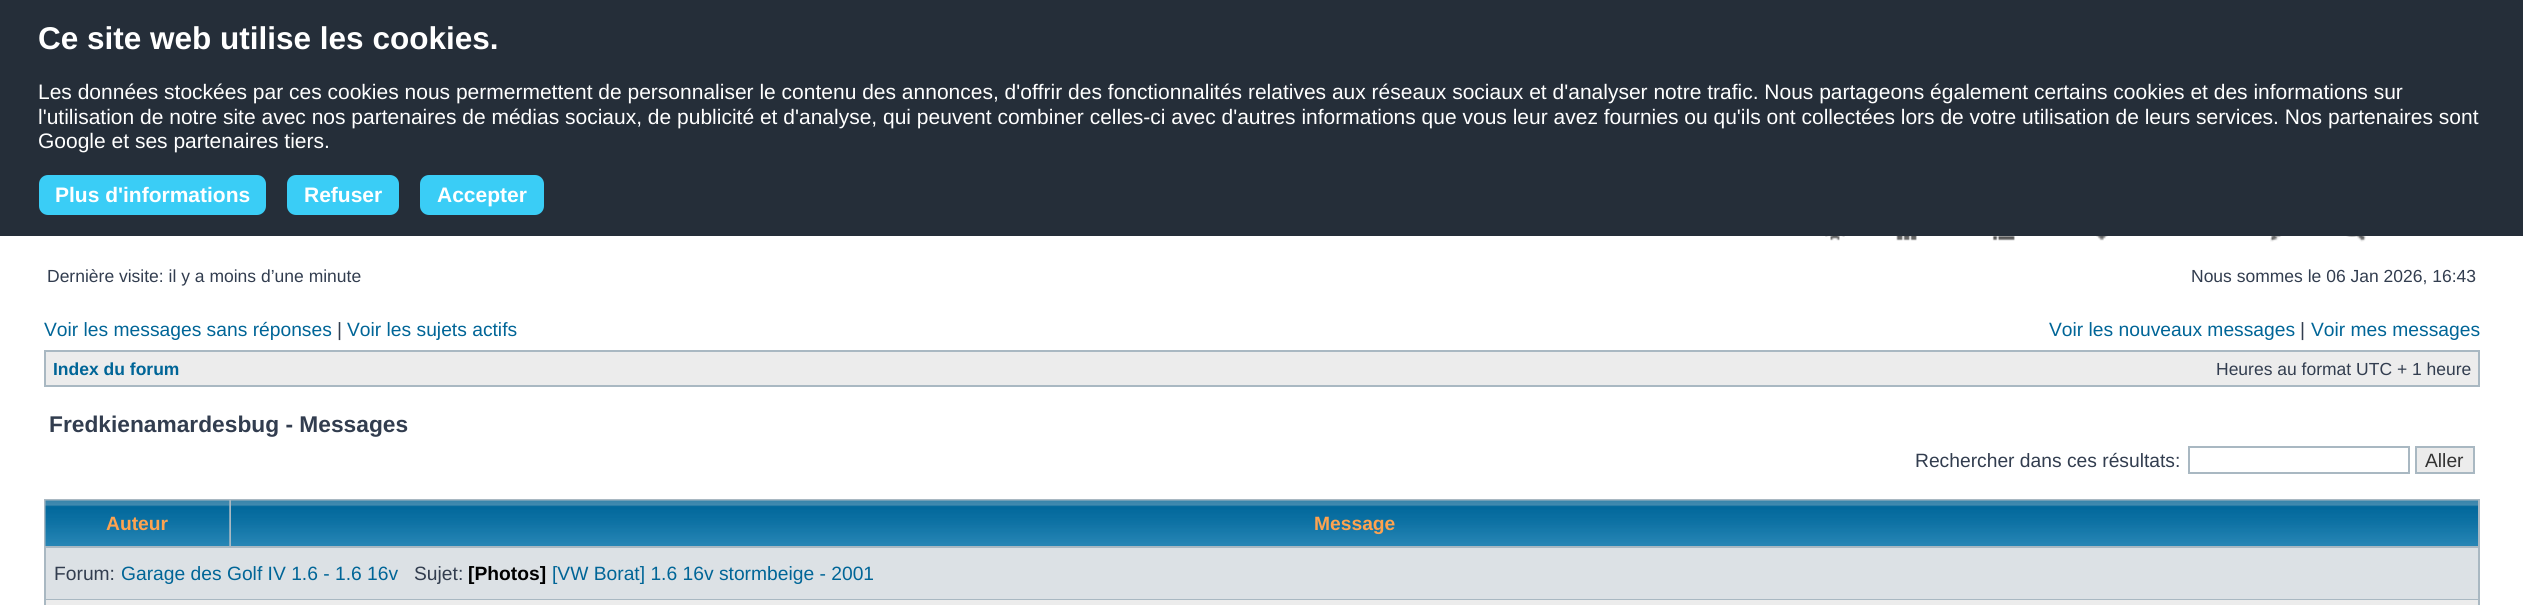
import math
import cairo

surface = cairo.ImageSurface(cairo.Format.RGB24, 2523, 605)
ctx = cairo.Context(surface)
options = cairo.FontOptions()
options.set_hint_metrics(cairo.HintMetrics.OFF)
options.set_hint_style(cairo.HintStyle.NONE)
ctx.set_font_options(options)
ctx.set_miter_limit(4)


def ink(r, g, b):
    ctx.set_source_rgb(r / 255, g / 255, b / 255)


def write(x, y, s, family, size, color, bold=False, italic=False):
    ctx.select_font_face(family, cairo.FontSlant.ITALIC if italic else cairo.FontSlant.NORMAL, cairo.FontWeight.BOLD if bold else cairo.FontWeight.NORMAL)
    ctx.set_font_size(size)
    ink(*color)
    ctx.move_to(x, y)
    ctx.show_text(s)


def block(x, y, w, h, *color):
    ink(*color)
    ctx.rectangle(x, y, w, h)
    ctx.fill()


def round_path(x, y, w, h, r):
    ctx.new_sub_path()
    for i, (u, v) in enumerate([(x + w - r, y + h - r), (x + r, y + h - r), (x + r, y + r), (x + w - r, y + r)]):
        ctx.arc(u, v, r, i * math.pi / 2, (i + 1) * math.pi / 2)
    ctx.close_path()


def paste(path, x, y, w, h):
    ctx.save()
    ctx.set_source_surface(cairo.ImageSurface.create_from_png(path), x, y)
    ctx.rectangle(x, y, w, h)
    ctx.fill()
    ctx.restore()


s1 = dict(family="Liberation Sans", size=31.5, color=(255, 255, 255), bold=True)
s2 = dict(family="Liberation Sans", size=21, color=(255, 255, 255))
s3 = dict(family="Liberation Sans", size=21, color=(255, 255, 255), bold=True)
s4 = dict(family="Liberation Sans", size=17.5, color=(50, 61, 79))
s5 = dict(family="Liberation Sans", size=19.25, color=(0, 101, 151))
s6 = dict(family="Liberation Sans", size=19.25, color=(50, 61, 79))
s7 = dict(family="Liberation Sans", size=17.5, color=(0, 101, 151), bold=True)
s8 = dict(family="Liberation Sans", size=22.75, color=(50, 61, 79), bold=True)
s9 = dict(family="Liberation Sans", size=19.25, color=(51, 51, 51))
s10 = dict(family="Liberation Sans", size=19.25, color=(255, 163, 79), bold=True)
s11 = dict(family="Liberation Sans", size=19.25, color=(0, 0, 0), bold=True)

ink(255, 255, 255)
ctx.paint()
block(0, 0, 2523, 236, 37, 46, 57)
write(38, 49, "Ce site web utilise les cookies.", **s1)
write(38, 99, "Les données stockées par ces cookies nous permermettent de personnaliser le contenu des annonces, d'offrir des fonctionnalités relatives aux réseaux sociaux et d'analyser notre trafic. Nous partageons également certains cookies et des informations sur", **s2)
write(38, 124, "l'utilisation de notre site avec nos partenaires de médias sociaux, de publicité et d'analyse, qui peuvent combiner celles-ci avec d'autres informations que vous leur avez fournies ou qu'ils ont collectées lors de votre utilisation de leurs services. Nos partenaires sont", **s2)
write(38, 148, "Google et ses partenaires tiers.", **s2)
ink(58, 205, 246)
round_path(39, 175, 227, 40, 9)
ctx.fill()
write(55, 202, "Plus d'informations", **s3)
ink(58, 205, 246)
round_path(287, 175, 112, 40, 9)
ctx.fill()
write(304, 202, "Refuser", **s3)
ink(58, 205, 246)
round_path(420, 175, 124, 40, 9)
ctx.fill()
write(437, 202, "Accepter", **s3)
paste("pic1.png", 1825, 236, 20, 5)
paste("pic2.png", 1896, 236, 21, 5)
paste("pic3.png", 1992, 236, 23, 5)
paste("pic4.png", 2095, 236, 14, 5)
paste("pic5.png", 2270, 236, 12, 6)
paste("pic6.png", 2345, 236, 21, 6)
write(47, 282, "Dernière visite: il y a moins d’une minute", **s4)
write(2191, 282, "Nous sommes le 06 Jan 2026, 16:43", **s4)
write(44, 336, "Voir les messages sans réponses", **s5)
write(337, 336, "|", **s6)
write(347, 336, "Voir les sujets actifs", **s5)
write(2049, 336, "Voir les nouveaux messages", **s5)
write(2300, 336, "|", **s6)
write(2311, 336, "Voir mes messages", **s5)
block(44, 350, 2436, 37, 169, 184, 194)
block(46, 352, 2432, 33, 236, 236, 236)
write(53, 375, "Index du forum", **s7)
write(2216, 375, "Heures au format UTC + 1 heure", **s4)
write(49, 432, "Fredkienamardesbug - Messages", **s8)
write(1915, 467, "Rechercher dans ces résultats:", **s6)
ctx.rectangle(2189, 447, 220, 26)
ink(169, 184, 194)
ctx.stroke()
ink(236, 236, 236)
ctx.rectangle(2416, 447, 58, 26)
ctx.fill_preserve()
ink(169, 184, 194)
ctx.stroke()
write(2425, 467, "Aller", **s9)
block(44, 499, 2436, 106, 169, 184, 194)
paste("pic7.png", 45, 500, 185, 46)
write(106, 530, "Auteur", **s10)
paste("pic8.png", 231, 500, 2247, 46)
write(1314, 530, "Message", **s10)
block(46, 548, 2432, 51, 220, 225, 229)
write(54, 580, "Forum:", **s6)
write(121, 580, "Garage des Golf IV 1.6 - 1.6 16v", **s5)
write(414, 580, "Sujet:", **s6)
write(468, 580, "[Photos]", **s11)
write(552, 580, "[VW Borat] 1.6 16v stormbeige - 2001", **s5)
block(46, 600, 2432, 5, 236, 236, 236)
surface.write_to_png("screenshot.png")
